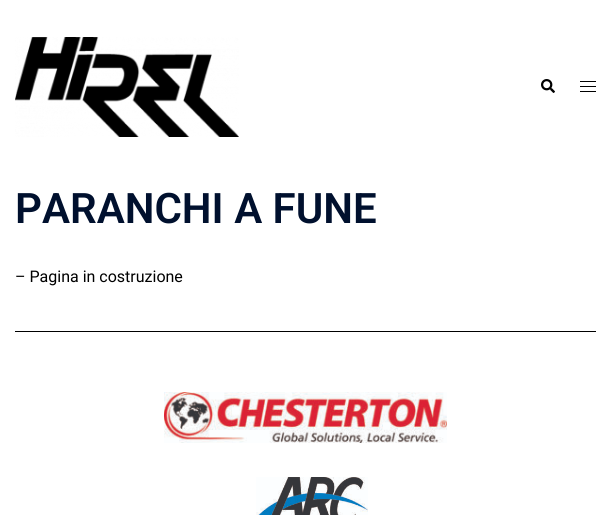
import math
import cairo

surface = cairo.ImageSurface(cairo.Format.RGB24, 611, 515)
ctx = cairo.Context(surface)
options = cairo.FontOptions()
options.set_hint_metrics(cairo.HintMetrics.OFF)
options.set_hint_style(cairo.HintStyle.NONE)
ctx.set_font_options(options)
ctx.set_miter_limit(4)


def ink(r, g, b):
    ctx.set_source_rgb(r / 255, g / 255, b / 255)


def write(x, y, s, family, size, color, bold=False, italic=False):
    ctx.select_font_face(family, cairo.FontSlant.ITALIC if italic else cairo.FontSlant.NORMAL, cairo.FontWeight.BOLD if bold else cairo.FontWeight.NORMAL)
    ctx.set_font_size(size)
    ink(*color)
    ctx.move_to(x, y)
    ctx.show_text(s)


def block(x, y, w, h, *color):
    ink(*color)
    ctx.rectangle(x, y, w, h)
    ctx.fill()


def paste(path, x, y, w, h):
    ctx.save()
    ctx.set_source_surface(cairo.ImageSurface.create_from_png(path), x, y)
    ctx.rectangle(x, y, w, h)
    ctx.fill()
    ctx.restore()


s1 = dict(family="Roboto SemiBold", size=42, color=(0, 16, 46))
s2 = dict(family="Roboto", size=16, color=(0, 0, 0))

ink(255, 255, 255)
ctx.paint()
paste("pic1.png", 15, 37, 224, 100)
paste("pic2.png", 541, 79, 14, 14)
block(580, 81, 16, 1, 0, 0, 0)
block(580, 86, 16, 1, 0, 0, 0)
block(580, 91, 16, 1, 0, 0, 0)
write(15, 223, "PARANCHI A FUNE", **s1)
write(15, 282, "– Pagina in costruzione", **s2)
block(15, 331, 581, 1, 0, 0, 0)
paste("pic3.png", 164, 392, 283, 51)
paste("pic4.png", 256, 477, 112, 38)
surface.write_to_png("screenshot.png")
